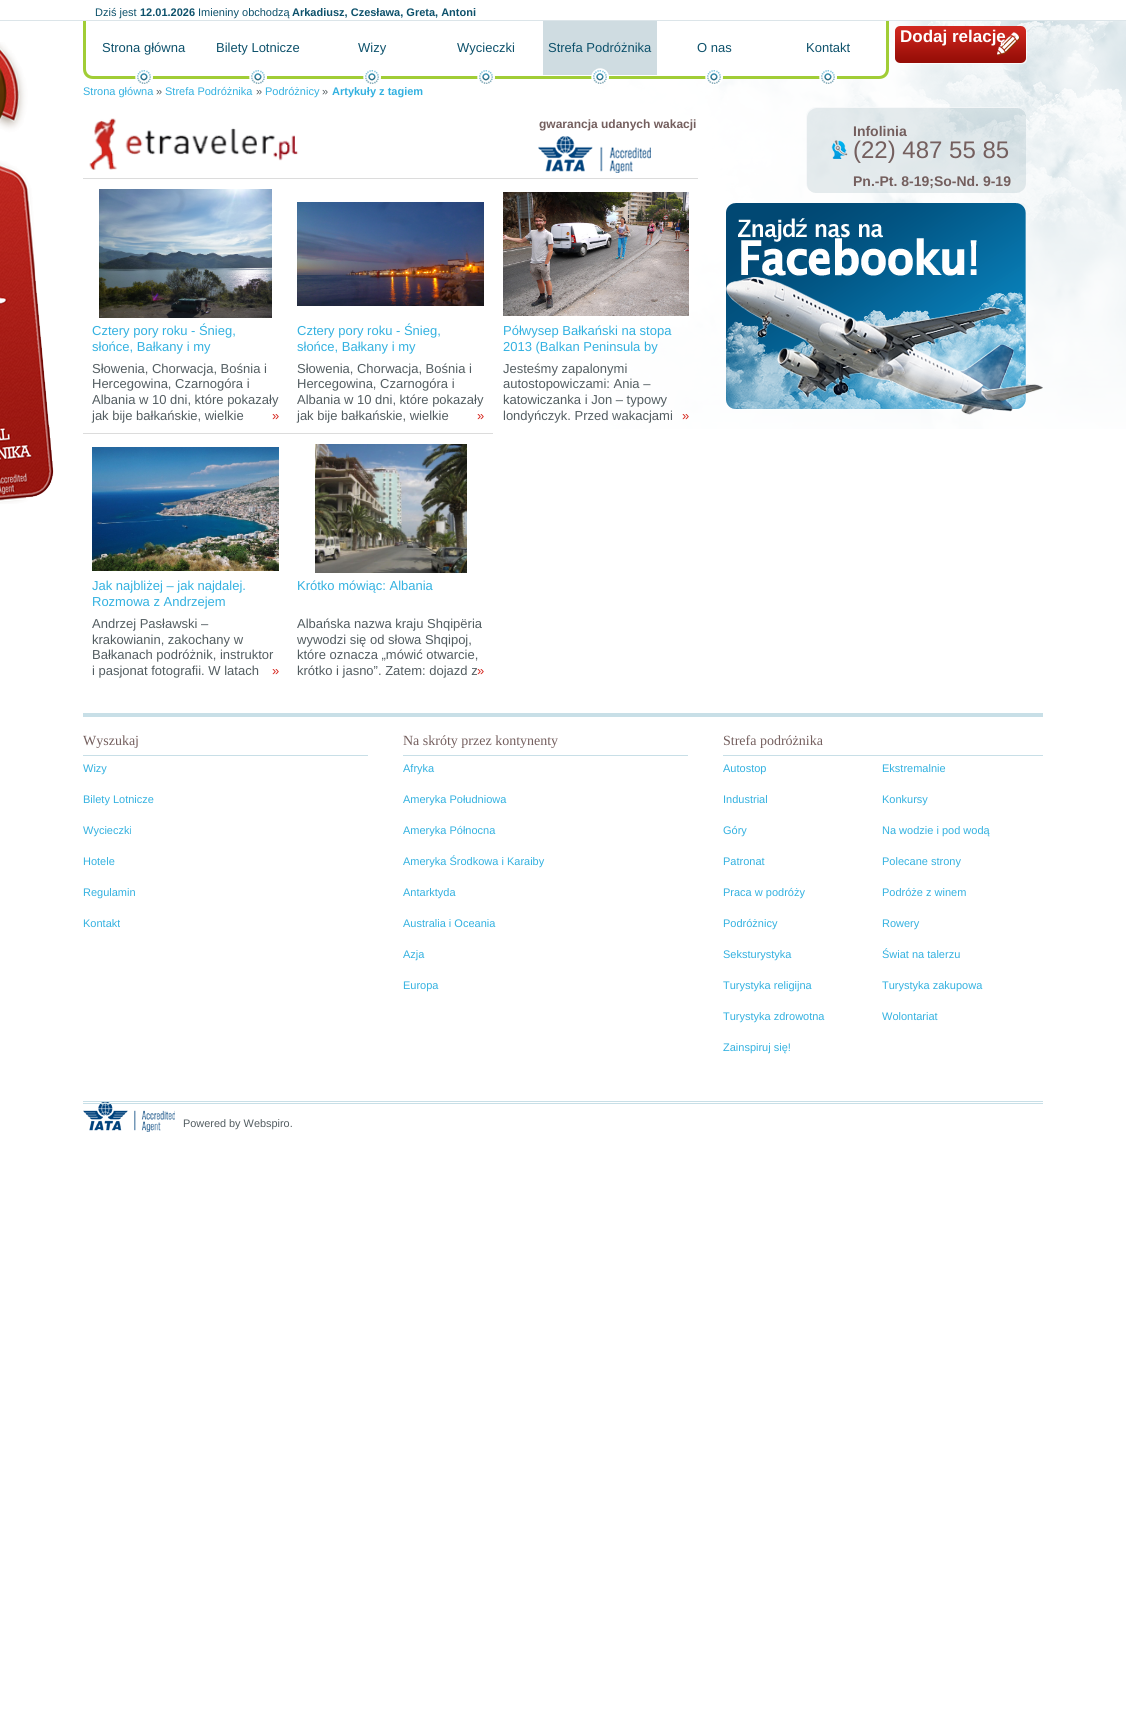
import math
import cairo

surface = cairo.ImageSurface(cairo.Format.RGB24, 1126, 1727)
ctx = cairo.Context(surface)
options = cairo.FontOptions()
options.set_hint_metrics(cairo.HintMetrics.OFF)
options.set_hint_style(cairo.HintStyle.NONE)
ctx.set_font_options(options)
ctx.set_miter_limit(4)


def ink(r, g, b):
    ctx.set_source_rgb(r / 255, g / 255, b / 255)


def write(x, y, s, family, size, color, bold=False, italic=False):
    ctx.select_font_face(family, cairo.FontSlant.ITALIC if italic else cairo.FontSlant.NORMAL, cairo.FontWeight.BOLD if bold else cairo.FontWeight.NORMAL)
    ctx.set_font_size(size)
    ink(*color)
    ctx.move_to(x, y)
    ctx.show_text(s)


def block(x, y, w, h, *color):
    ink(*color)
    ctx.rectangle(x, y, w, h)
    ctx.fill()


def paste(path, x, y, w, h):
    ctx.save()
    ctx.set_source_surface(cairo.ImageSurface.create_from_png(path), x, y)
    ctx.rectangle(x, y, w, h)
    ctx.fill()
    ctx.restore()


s1 = dict(family="Liberation Sans", size=11, color=(13, 81, 107))
s2 = dict(family="Liberation Sans", size=11, color=(13, 81, 107), bold=True)
s3 = dict(family="Liberation Sans", size=17, color=(255, 255, 255), bold=True)
s4 = dict(family="Liberation Sans", size=13, color=(13, 81, 107))
s5 = dict(family="Liberation Sans", size=11, color=(51, 177, 224))
s6 = dict(family="Liberation Sans", size=11, color=(83, 93, 97))
s7 = dict(family="Liberation Sans", size=11, color=(51, 177, 224), bold=True)
s8 = dict(family="Liberation Sans", size=12, color=(116, 95, 94), bold=True)
s9 = dict(family="Liberation Sans", size=13, color=(51, 177, 224))
s10 = dict(family="Liberation Sans", size=13, color=(83, 93, 97))
s11 = dict(family="Liberation Sans", size=13, color=(214, 38, 30))
s12 = dict(family="Liberation Sans", size=14, color=(116, 95, 94), bold=True)
s13 = dict(family="Liberation Sans", size=24, color=(116, 95, 94))
s14 = dict(family="Liberation Serif", size=14, color=(116, 95, 94))
s15 = dict(family="Liberation Sans", size=10.9, color=(83, 93, 97))

ink(255, 255, 255)
ctx.paint()
paste("pic1.png", 0, 20, 1126, 409)
write(95, 16, "Dziś jest", **s1)
write(140, 16, "12.01.2026", **s2)
write(198, 16, "Imieniny obchodzą", **s1)
write(292, 16, "Arkadiusz, Czesława, Greta, Antoni", **s2)
paste("pic2.png", 895, 26, 132, 38)
write(900, 42, "Dodaj relację", **s3)
paste("pic3.png", 0, 42, 54, 462)
ctx.new_path()
ctx.move_to(83, 21)
ctx.line_to(889, 21)
ctx.line_to(889, 69)
ctx.curve_to(889, 74.5, 884.5, 79, 879, 79)
ctx.line_to(93, 79)
ctx.curve_to(87.5, 79, 83, 74.5, 83, 69)
ctx.close_path()
ctx.fill()
ink(161, 205, 54)
ctx.set_fill_rule(cairo.FillRule.EVEN_ODD)
ctx.new_path()
ctx.move_to(83, 21)
ctx.line_to(889, 21)
ctx.line_to(889, 69)
ctx.curve_to(889, 75, 885, 79, 879, 79)
ctx.line_to(93, 79)
ctx.curve_to(87, 79, 83, 75, 83, 69)
ctx.close_path()
ctx.move_to(86, 21)
ctx.line_to(886, 21)
ctx.line_to(886, 69)
ctx.curve_to(886, 73, 883, 76, 879, 76)
ctx.line_to(93, 76)
ctx.curve_to(89, 76, 86, 73, 86, 69)
ctx.close_path()
ctx.fill()
paste("pic4.png", 135, 75, 18, 9)
paste("pic5.png", 137, 70, 14, 5)
write(102, 52, "Strona główna", **s4)
paste("pic4.png", 249, 75, 18, 9)
paste("pic5.png", 251, 70, 14, 5)
write(216, 52, "Bilety Lotnicze", **s4)
paste("pic4.png", 363, 75, 18, 9)
paste("pic5.png", 365, 70, 14, 5)
write(358, 52, "Wizy", **s4)
paste("pic4.png", 477, 75, 18, 9)
paste("pic5.png", 479, 70, 14, 5)
write(457, 52, "Wycieczki", **s4)
paste("pic6.png", 591, 75, 18, 9)
block(543, 21, 114, 54, 207, 220, 225)
paste("pic7.png", 591, 68, 18, 7)
write(548, 52, "Strefa Podróżnika", **s4)
paste("pic8.png", 705, 75, 18, 10)
paste("pic5.png", 707, 70, 14, 5)
write(697, 52, "O nas", **s4)
paste("pic9.png", 819, 75, 18, 9)
paste("pic5.png", 821, 70, 14, 5)
write(806, 52, "Kontakt", **s4)
write(83, 95, "Strona główna", **s5)
write(156, 95, "»", **s6)
write(165, 95, "Strefa Podróżnika", **s5)
write(256, 95, "»", **s6)
write(265, 95, "Podróżnicy", **s5)
write(322, 95, "»", **s6)
write(332, 95, "Artykuły z tagiem", **s7)
paste("pic10.png", 89, 118, 210, 52)
write(539, 128, "gwarancja udanych wakacji", **s8)
paste("pic11.png", 538, 136, 113, 37)
block(83, 178, 615, 1, 220, 220, 220)
paste("pic12.png", 99, 189, 173, 129)
write(92, 335, "Cztery pory roku - Śnieg,", **s9)
write(92, 351, "słońce, Bałkany i my", **s9)
write(92, 373, "Słowenia, Chorwacja, Bośnia i", **s10)
write(92, 388, "Hercegowina, Czarnogóra i", **s10)
write(92, 404, "Albania w 10 dni, które pokazały", **s10)
write(92, 420, "jak bije bałkańskie, wielkie", **s10)
write(272, 420, "»", **s11)
paste("pic13.png", 297, 202, 187, 104)
write(297, 335, "Cztery pory roku - Śnieg,", **s9)
write(297, 351, "słońce, Bałkany i my", **s9)
write(297, 373, "Słowenia, Chorwacja, Bośnia i", **s10)
write(297, 388, "Hercegowina, Czarnogóra i", **s10)
write(297, 404, "Albania w 10 dni, które pokazały", **s10)
write(297, 420, "jak bije bałkańskie, wielkie", **s10)
write(477, 420, "»", **s11)
paste("pic14.png", 503, 192, 186, 124)
write(503, 335, "Półwysep Bałkański na stopa", **s9)
write(503, 351, "2013 (Balkan Peninsula by", **s9)
write(503, 373, "Jesteśmy zapalonymi", **s10)
write(503, 388, "autostopowiczami: Ania –", **s10)
write(503, 404, "katowiczanka i Jon – typowy", **s10)
write(503, 420, "londyńczyk. Przed wakacjami", **s10)
write(682, 420, "»", **s11)
block(83, 433, 410, 1, 220, 220, 220)
paste("pic15.png", 92, 447, 187, 124)
write(92, 590, "Jak najbliżej – jak najdalej.", **s9)
write(92, 606, "Rozmowa z Andrzejem", **s9)
write(92, 628, "Andrzej Pasławski –", **s10)
write(92, 644, "krakowianin, zakochany w", **s10)
write(92, 659, "Bałkanach podróżnik, instruktor", **s10)
write(92, 675, "i pasjonat fotografii. W latach", **s10)
write(272, 675, "»", **s11)
paste("pic16.png", 315, 444, 152, 129)
write(297, 590, "Krótko mówiąc: Albania", **s9)
write(297, 628, "Albańska nazwa kraju Shqipëria", **s10)
write(297, 644, "wywodzi się od słowa Shqipoj,", **s10)
write(297, 659, "które oznacza „mówić otwarcie,", **s10)
write(297, 675, "krótko i jasno”. Zatem: dojazd z", **s10)
write(477, 675, "»", **s11)
paste("pic17.png", 806, 107, 220, 86)
write(853, 136, "Infolinia", **s12)
write(853, 158, "(22) 487 55 85", **s13)
write(853, 186, "Pn.-Pt. 8-19;So-Nd. 9-19", **s12)
paste("pic18.png", 726, 203, 317, 212)
paste("pic19.png", 83, 1102, 92, 30)
block(83, 713, 960, 4, 200, 223, 231)
block(83, 755, 285, 1, 200, 223, 231)
write(83, 745, "Wyszukaj", **s14)
write(83, 772, "Wizy", **s5)
write(83, 803, "Bilety Lotnicze", **s5)
write(83, 834, "Wycieczki", **s5)
write(83, 865, "Hotele", **s5)
write(83, 896, "Regulamin", **s5)
write(83, 927, "Kontakt", **s5)
block(403, 755, 285, 1, 200, 223, 231)
write(403, 745, "Na skróty przez kontynenty", **s14)
write(403, 772, "Afryka", **s5)
write(403, 803, "Ameryka Południowa", **s5)
write(403, 834, "Ameryka Północna", **s5)
write(403, 865, "Ameryka Środkowa i Karaiby", **s5)
write(403, 896, "Antarktyda", **s5)
write(403, 927, "Australia i Oceania", **s5)
write(403, 958, "Azja", **s5)
write(403, 989, "Europa", **s5)
block(723, 755, 320, 1, 200, 223, 231)
write(723, 745, "Strefa podróżnika", **s14)
write(723, 772, "Autostop", **s5)
write(882, 772, "Ekstremalnie", **s5)
write(723, 803, "Industrial", **s5)
write(882, 803, "Konkursy", **s5)
write(723, 834, "Góry", **s5)
write(882, 834, "Na wodzie i pod wodą", **s5)
write(723, 865, "Patronat", **s5)
write(882, 865, "Polecane strony", **s5)
write(723, 896, "Praca w podróży", **s5)
write(882, 896, "Podróże z winem", **s5)
write(723, 927, "Podróżnicy", **s5)
write(882, 927, "Rowery", **s5)
write(723, 958, "Seksturystyka", **s5)
write(882, 958, "Świat na talerzu", **s5)
write(723, 989, "Turystyka religijna", **s5)
write(882, 989, "Turystyka zakupowa", **s5)
write(723, 1020, "Turystyka zdrowotna", **s5)
write(882, 1020, "Wolontariat", **s5)
write(723, 1051, "Zainspiruj się!", **s5)
block(83, 1101, 960, 1, 200, 223, 231)
block(83, 1103, 960, 1, 200, 223, 231)
write(183, 1127, "Powered by Webspiro.", **s15)
surface.write_to_png("screenshot.png")
